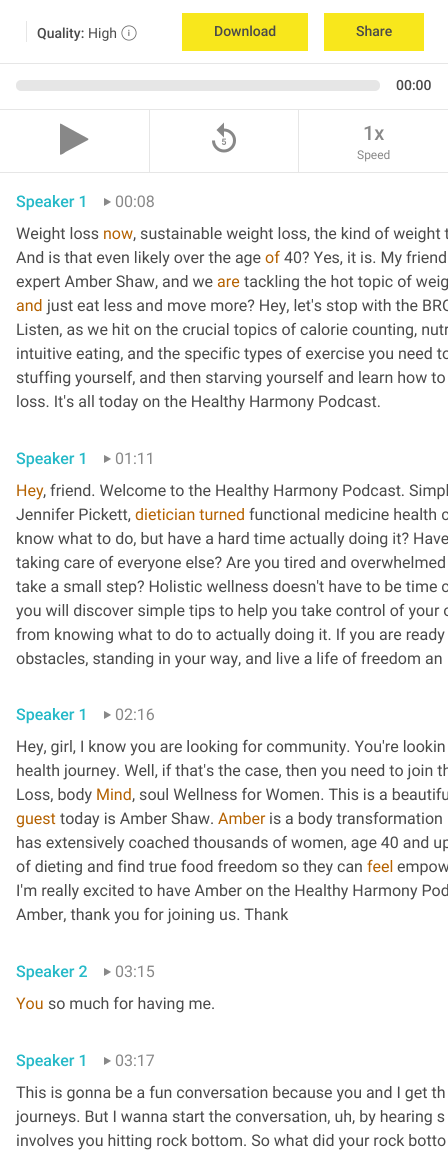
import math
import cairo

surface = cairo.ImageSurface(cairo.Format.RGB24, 448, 1152)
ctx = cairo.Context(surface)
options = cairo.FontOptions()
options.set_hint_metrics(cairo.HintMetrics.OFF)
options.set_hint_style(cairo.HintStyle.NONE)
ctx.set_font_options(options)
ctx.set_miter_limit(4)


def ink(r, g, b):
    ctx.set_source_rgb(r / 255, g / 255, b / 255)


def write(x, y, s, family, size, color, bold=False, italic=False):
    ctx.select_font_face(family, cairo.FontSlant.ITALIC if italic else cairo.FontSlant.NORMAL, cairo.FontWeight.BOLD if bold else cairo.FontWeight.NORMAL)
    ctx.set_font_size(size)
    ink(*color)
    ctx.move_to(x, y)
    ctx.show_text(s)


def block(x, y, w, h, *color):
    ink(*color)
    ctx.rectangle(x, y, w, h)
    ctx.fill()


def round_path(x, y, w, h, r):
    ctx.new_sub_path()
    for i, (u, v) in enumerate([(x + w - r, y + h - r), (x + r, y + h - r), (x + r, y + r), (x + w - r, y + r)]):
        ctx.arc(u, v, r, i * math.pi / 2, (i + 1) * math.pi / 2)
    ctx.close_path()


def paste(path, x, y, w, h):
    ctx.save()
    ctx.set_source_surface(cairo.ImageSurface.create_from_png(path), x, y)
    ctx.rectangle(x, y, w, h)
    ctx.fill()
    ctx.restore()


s1 = dict(family="Roboto Medium", size=14, color=(74, 74, 74))
s2 = dict(family="Roboto", size=14, color=(74, 74, 74))
s3 = dict(family="Roboto Medium", size=20, color=(136, 136, 136))
s4 = dict(family="Roboto", size=12, color=(136, 136, 136))
s5 = dict(family="Roboto Medium", size=16, color=(37, 185, 200))
s6 = dict(family="Roboto", size=16, color=(136, 136, 136))
s7 = dict(family="Roboto", size=16, color=(74, 74, 74))
s8 = dict(family="Roboto", size=16, color=(180, 97, 0))

ink(255, 255, 255)
ctx.paint()
block(0, 63, 448, 1, 230, 230, 230)
block(26, 21, 1, 21, 230, 230, 230)
write(37, 38, "Quality:", **s1)
write(88, 38, "High", **s2)
paste("pic1.png", 121, 25, 16, 16)
block(182, 13, 126, 38, 248, 231, 28)
write(214, 36, "Download", **s1)
block(324, 13, 100, 38, 248, 231, 28)
write(356, 36, "Share", **s1)
ink(230, 230, 230)
round_path(16, 80, 364, 11, 5)
ctx.fill()
write(396, 90, "00:00", **s1)
block(0, 109, 448, 1, 230, 230, 230)
block(149, 109, 1, 64, 230, 230, 230)
block(0, 172, 150, 1, 230, 230, 230)
ink(136, 136, 136)
ctx.new_path()
ctx.move_to(88, 140)
ctx.line_to(65.5, 152)
ctx.curve_to(65, 152.5, 61, 155.5, 60, 154.5)
ctx.line_to(60, 124)
ctx.line_to(60.5, 123.5)
ctx.line_to(88, 138.5)
ctx.line_to(88.5, 139)
ctx.close_path()
ctx.fill()
block(298, 109, 1, 64, 230, 230, 230)
block(150, 172, 298, 1, 230, 230, 230)
paste("pic2.png", 212, 122, 24, 31)
write(363, 140, "1x", **s3)
write(357, 159, "Speed", **s4)
write(16, 207, "Speaker 1", **s5)
paste("pic3.png", 104, 198, 7, 8)
write(115, 207, "00:08", **s6)
write(16, 239, "Weight loss", **s7)
write(103, 239, "now", **s8)
write(133, 239, ", sustainable weight loss, the kind of weight t", **s7)
write(16, 263, "And is that even likely over the age", **s7)
write(265, 263, "of", **s8)
write(284, 263, "40? Yes, it is. My friend", **s7)
write(16, 287, "expert Amber Shaw, and we", **s7)
write(217, 287, "are", **s8)
write(244, 287, "tackling the hot topic of weig", **s7)
write(16, 311, "and", **s8)
write(47, 311, "just eat less and move more? Hey, let's stop with the BRO", **s7)
write(16, 335, "Listen, as we hit on the crucial topics of calorie counting, nutr", **s7)
write(16, 359, "intuitive eating, and the specific types of exercise you need to", **s7)
write(16, 383, "stuffing yourself, and then starving yourself and learn how to", **s7)
write(16, 407, "loss. It's all today on the Healthy Harmony Podcast.", **s7)
write(16, 464, "Speaker 1", **s5)
paste("pic3.png", 104, 455, 7, 8)
write(115, 464, "01:11", **s6)
write(16, 496, "Hey", **s8)
write(43, 496, ", friend. Welcome to the Healthy Harmony Podcast. Simpl", **s7)
write(16, 520, "Jennifer Pickett,", **s7)
write(135, 520, "dietician turned", **s8)
write(249, 520, "functional medicine health c", **s7)
write(16, 544, "know what to do, but have a hard time actually doing it? Have", **s7)
write(16, 568, "taking care of everyone else? Are you tired and overwhelmed", **s7)
write(16, 592, "take a small step? Holistic wellness doesn't have to be time c", **s7)
write(16, 616, "you will discover simple tips to help you take control of your o", **s7)
write(16, 640, "from knowing what to do to actually doing it. If you are ready", **s7)
write(16, 664, "obstacles, standing in your way, and live a life of freedom an", **s7)
write(16, 720, "Speaker 1", **s5)
paste("pic3.png", 104, 711, 7, 8)
write(115, 720, "02:16", **s6)
write(16, 752, "Hey, girl, I know you are looking for community. You're lookin", **s7)
write(16, 776, "health journey. Well, if that's the case, then you need to join th", **s7)
write(16, 800, "Loss, body", **s7)
write(96, 800, "Mind", **s8)
write(132, 800, ", soul Wellness for Women. This is a beautifu", **s7)
write(16, 824, "guest", **s8)
write(60, 824, "today is Amber Shaw.", **s7)
write(218, 824, "Amber", **s8)
write(269, 824, "is a body transformation", **s7)
write(16, 848, "has extensively coached thousands of women, age 40 and up", **s7)
write(16, 872, "of dieting and find true food freedom so they can", **s7)
write(367, 872, "feel", **s8)
write(397, 872, "empow", **s7)
write(16, 896, "I'm really excited to have Amber on the Healthy Harmony Pod", **s7)
write(16, 920, "Amber, thank you for joining us. Thank", **s7)
write(16, 977, "Speaker 2", **s5)
paste("pic3.png", 104, 968, 7, 8)
write(115, 977, "03:15", **s6)
write(16, 1009, "You", **s8)
write(48, 1009, "so much for having me.", **s7)
write(16, 1066, "Speaker 1", **s5)
paste("pic3.png", 104, 1057, 7, 8)
write(115, 1066, "03:17", **s6)
write(16, 1098, "This is gonna be a fun conversation because you and I get th", **s7)
write(16, 1122, "journeys. But I wanna start the conversation, uh, by hearing s", **s7)
write(16, 1146, "involves you hitting rock bottom. So what did your rock botto", **s7)
surface.write_to_png("screenshot.png")
